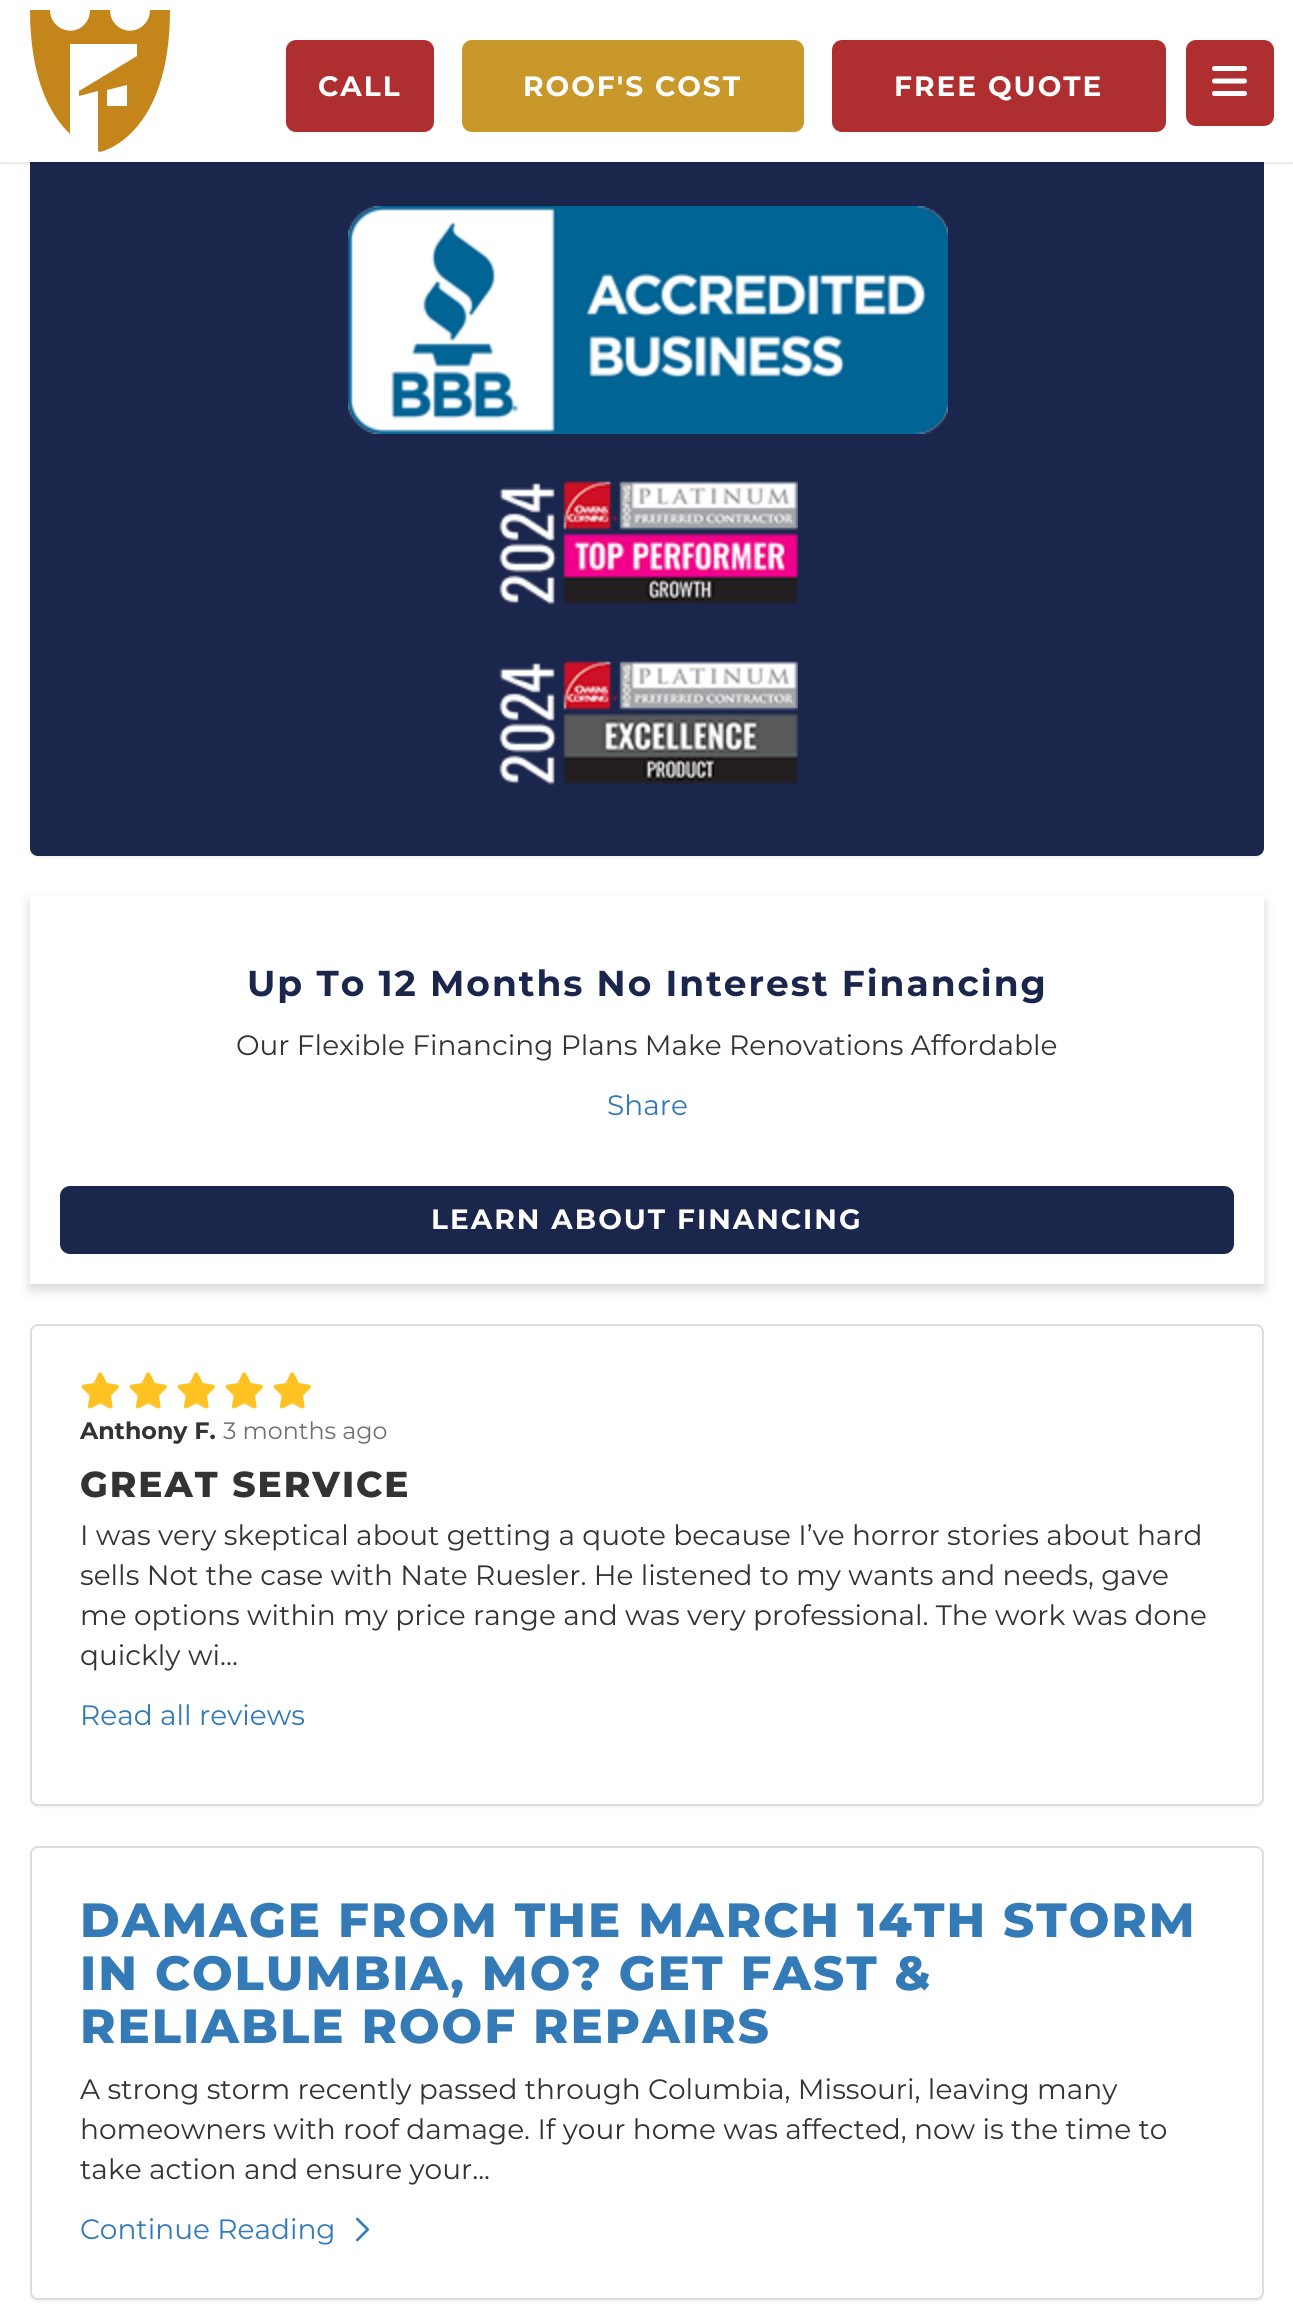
import math
import cairo

surface = cairo.ImageSurface(cairo.Format.RGB24, 1293, 2314)
ctx = cairo.Context(surface)
options = cairo.FontOptions()
options.set_hint_metrics(cairo.HintMetrics.OFF)
options.set_hint_style(cairo.HintStyle.NONE)
ctx.set_font_options(options)
ctx.set_miter_limit(4)


def ink(r, g, b):
    ctx.set_source_rgb(r / 255, g / 255, b / 255)


def write(x, y, s, family, size, color, bold=False, italic=False):
    ctx.select_font_face(family, cairo.FontSlant.ITALIC if italic else cairo.FontSlant.NORMAL, cairo.FontWeight.BOLD if bold else cairo.FontWeight.NORMAL)
    ctx.set_font_size(size)
    ink(*color)
    ctx.move_to(x, y)
    ctx.show_text(s)


def write_spaced(x, y, s, letter, word):
    ctx.move_to(x, y)
    for ch in s:
        ctx.show_text(ch)
        ctx.rel_move_to(letter + word * (ch == ' '), 0)


def block(x, y, w, h, *color):
    ink(*color)
    ctx.rectangle(x, y, w, h)
    ctx.fill()


def round_path(x, y, w, h, r):
    ctx.new_sub_path()
    for i, (u, v) in enumerate([(x + w - r, y + h - r), (x + r, y + h - r), (x + r, y + r), (x + w - r, y + r)]):
        ctx.arc(u, v, r, i * math.pi / 2, (i + 1) * math.pi / 2)
    ctx.close_path()


def blur_box(x, y, w, h, r, blur, alpha):
    ctx.push_group_with_content(cairo.Content.ALPHA)
    ctx.set_operator(cairo.Operator.SOURCE)
    for i in range(15, -16, -2):
        e = blur * i / 6
        if min(w, h) + 2 * e > 0:
            ctx.set_source_rgba(0, 0, 0, alpha * math.erfc((i - 1) / 8.5) / 2)
            round_path(x - e, y - e, w + 2 * e, h + 2 * e, max(0, min(r + e + blur * .6, min(w, h) / 2 + e)))
            ctx.fill()
    ctx.mask(ctx.pop_group())


def paste(path, x, y, w, h):
    ctx.save()
    ctx.set_source_surface(cairo.ImageSurface.create_from_png(path), x, y)
    ctx.rectangle(x, y, w, h)
    ctx.fill()
    ctx.restore()


s1 = dict(family="Montserrat", size=28, color=(51, 51, 51))
s2 = dict(family="Montserrat", size=28, color=(51, 122, 183))
s3 = dict(family="Montserrat", size=23.75, color=(51, 51, 51), bold=True)
s4 = dict(family="Montserrat", size=23.75, color=(112, 112, 112))

ink(255, 255, 255)
ctx.paint()
ink(0, 0, 0)
blur_box(30, -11, 1234, 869, 8, 1, 0.05)
ink(27, 38, 77)
round_path(30, -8, 1234, 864, 8)
ctx.fill()
ink(0, 0, 0)
blur_box(0, 2, 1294, 162, 0, 1, 0.1)
block(0, 0, 1293, 162, 255, 255, 255)
ink(196, 134, 26)
ctx.new_path()
ctx.move_to(150, 10)
ctx.curve_to(150, 14, 149, 18, 147, 21)
ctx.curve_to(135, 39, 110, 30, 110, 10)
ctx.line_to(90, 10)
ctx.curve_to(90, 14, 89, 18, 87, 21)
ctx.curve_to(76, 39, 50, 30, 50, 10)
ctx.line_to(30, 10)
ctx.curve_to(30, 80, 51, 116, 70, 134)
ctx.line_to(70, 44)
ctx.line_to(137, 44)
ctx.line_to(137, 56)
ctx.line_to(79, 91)
ctx.line_to(79, 96)
ctx.line_to(98, 91)
ctx.line_to(98, 151)
ctx.line_to(100, 152)
ctx.curve_to(100, 152, 170, 138, 170, 10)
ctx.close_path()
ctx.move_to(107, 106)
ctx.line_to(107, 90)
ctx.line_to(127, 85)
ctx.line_to(127, 106)
ctx.close_path()
ctx.fill()
ink(175, 47, 48)
round_path(287, 41, 146, 90, 9)
ctx.fill_preserve()
ctx.stroke()
ctx.select_font_face("Montserrat", cairo.FontSlant.NORMAL, cairo.FontWeight.BOLD)
ctx.set_font_size(28)
ink(255, 255, 255)
write_spaced(318, 96, "CALL", 2, 0)
ink(201, 152, 43)
round_path(463, 41, 340, 90, 9)
ctx.fill_preserve()
ctx.stroke()
ink(255, 255, 255)
write_spaced(523, 96, "ROOF'S COST", 2, 0)
ink(175, 47, 48)
round_path(833, 41, 332, 90, 9)
ctx.fill_preserve()
ctx.stroke()
ink(255, 255, 255)
write_spaced(894, 96, "FREE QUOTE", 2, 0)
ink(175, 47, 48)
round_path(1186, 40, 88, 86, 10)
ctx.fill()
paste("pic1.png", 1212, 66, 35, 30)
paste("pic2.png", 348, 206, 600, 228)
paste("pic3.png", 499, 481, 299, 124)
paste("pic4.png", 499, 661, 299, 124)
ctx.save()
ctx.set_fill_rule(cairo.FillRule.EVEN_ODD)
ctx.new_path()
ctx.move_to(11, 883)
ctx.line_to(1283, 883)
ctx.line_to(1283, 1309)
ctx.line_to(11, 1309)
ctx.close_path()
ctx.move_to(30, 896)
ctx.line_to(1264, 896)
ctx.line_to(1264, 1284)
ctx.line_to(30, 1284)
ctx.close_path()
ctx.clip()
ink(0, 0, 0)
blur_box(30, 902, 1234, 388, 0, 6, 0.16)
ctx.restore()
ctx.set_font_size(36)
ink(27, 38, 77)
write_spaced(247, 996, "Up To 12 Months No Interest Financing", 2, 0)
write(236, 1055, "Our Flexible Financing Plans Make Renovations Affordable", **s1)
write(607, 1115, "Share", **s2)
ink(27, 38, 77)
round_path(61, 1187, 1172, 66, 9)
ctx.fill_preserve()
ctx.stroke()
ctx.select_font_face("Montserrat", cairo.FontSlant.NORMAL, cairo.FontWeight.BOLD)
ink(255, 255, 255)
write_spaced(431, 1229, "LEARN ABOUT FINANCING", 2, 0)
ink(0, 0, 0)
blur_box(30, 1326, 1234, 482, 8, 1, 0.05)
ink(255, 255, 255)
round_path(31, 1325, 1232, 480, 7)
ctx.fill_preserve()
ink(221, 221, 221)
ctx.stroke()
paste("pic5.png", 81, 1372, 38, 37)
paste("pic5.png", 129, 1372, 38, 37)
paste("pic5.png", 177, 1372, 38, 37)
paste("pic5.png", 225, 1372, 38, 37)
paste("pic5.png", 273, 1372, 38, 37)
write(80, 1439, "Anthony F.", **s3)
write(223, 1439, "3 months ago", **s4)
ctx.select_font_face("Montserrat ExtraBold")
ctx.set_font_size(36)
ink(51, 51, 51)
write_spaced(80, 1497, "GREAT SERVICE", 2, 0)
write(80, 1545, "I was very skeptical about getting a quote because I’ve horror stories about hard", **s1)
write(80, 1585, "sells Not the case with Nate Ruesler. He listened to my wants and needs, gave", **s1)
write(80, 1625, "me options within my price range and was very professional. The work was done", **s1)
write(80, 1665, "quickly wi...", **s1)
write(80, 1725, "Read all reviews", **s2)
ink(0, 0, 0)
blur_box(30, 1848, 1234, 454, 8, 1, 0.05)
ink(255, 255, 255)
round_path(31, 1847, 1232, 452, 7)
ctx.fill_preserve()
ink(221, 221, 221)
ctx.stroke()
ctx.select_font_face("Montserrat ExtraBold")
ctx.set_font_size(48)
ink(51, 122, 183)
write_spaced(80, 1937, "DAMAGE FROM THE MARCH 14TH STORM", 2, 0)
write_spaced(80, 1990, "IN COLUMBIA, MO? GET FAST &", 2, 0)
write_spaced(80, 2043, "RELIABLE ROOF REPAIRS", 2, 0)
write(80, 2099, "A strong storm recently passed through Columbia, Missouri, leaving many", **s1)
write(80, 2139, "homeowners with roof damage. If your home was affected, now is the time to", **s1)
write(80, 2179, "take action and ensure your...", **s1)
write(80, 2239, "Continue Reading", **s2)
paste("pic6.png", 356, 2217, 13, 25)
surface.write_to_png("screenshot.png")
